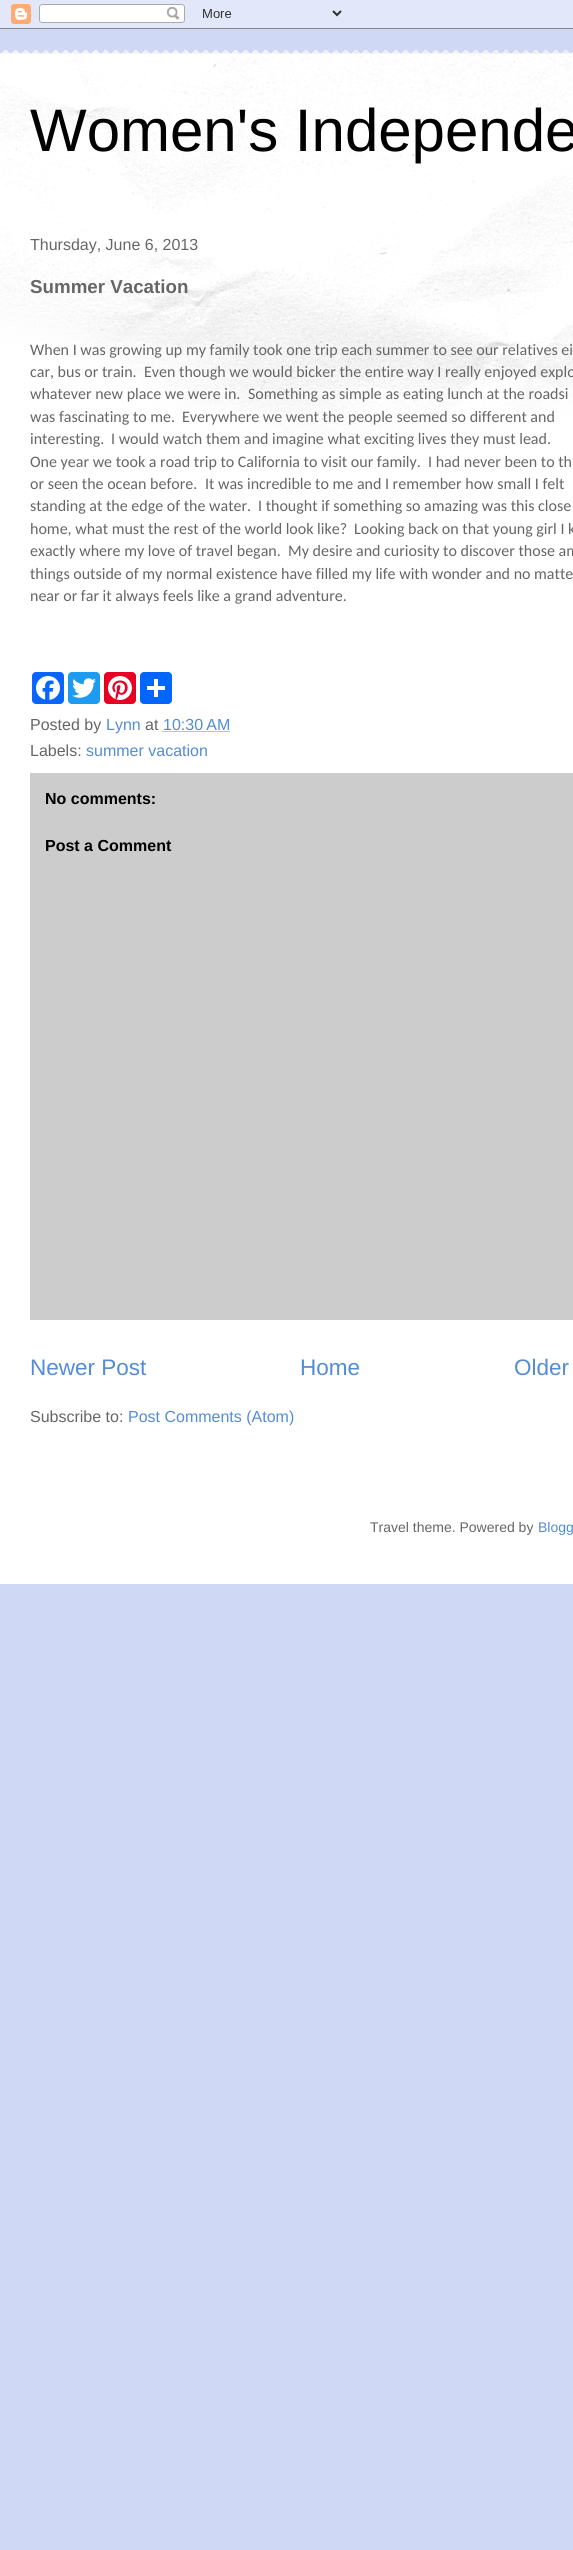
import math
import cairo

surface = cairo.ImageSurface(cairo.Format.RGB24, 573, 2550)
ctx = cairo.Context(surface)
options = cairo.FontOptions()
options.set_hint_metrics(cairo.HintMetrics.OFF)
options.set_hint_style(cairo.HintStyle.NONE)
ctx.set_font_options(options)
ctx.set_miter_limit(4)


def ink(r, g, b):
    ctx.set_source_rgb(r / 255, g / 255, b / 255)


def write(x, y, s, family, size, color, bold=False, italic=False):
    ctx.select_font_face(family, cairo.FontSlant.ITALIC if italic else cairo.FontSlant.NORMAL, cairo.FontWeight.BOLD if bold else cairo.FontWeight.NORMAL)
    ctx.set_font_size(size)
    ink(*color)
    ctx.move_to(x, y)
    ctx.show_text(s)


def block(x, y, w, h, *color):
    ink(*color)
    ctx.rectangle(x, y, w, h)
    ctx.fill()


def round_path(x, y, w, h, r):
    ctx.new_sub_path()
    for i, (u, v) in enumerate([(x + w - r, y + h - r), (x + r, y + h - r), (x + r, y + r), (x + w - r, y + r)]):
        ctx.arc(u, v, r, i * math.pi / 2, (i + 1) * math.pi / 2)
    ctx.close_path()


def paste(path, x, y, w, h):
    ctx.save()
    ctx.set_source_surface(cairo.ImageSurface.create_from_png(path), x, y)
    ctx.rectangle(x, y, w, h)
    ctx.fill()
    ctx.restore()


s1 = dict(family="Liberation Sans", size=60, color=(0, 0, 0))
s2 = dict(family="Liberation Sans", size=16, color=(102, 102, 102))
s3 = dict(family="Liberation Sans", size=18.75, color=(102, 102, 102), bold=True)
s4 = dict(family="Carlito", size=16, color=(102, 102, 102))
s5 = dict(family="Liberation Sans", size=16, color=(83, 140, 214))
s6 = dict(family="Liberation Sans", size=16, color=(0, 0, 0), bold=True)
s7 = dict(family="Liberation Sans", size=22.5, color=(83, 140, 214))
s8 = dict(family="Liberation Sans", size=14, color=(102, 102, 102))
s9 = dict(family="Liberation Sans", size=14, color=(83, 140, 214))

ink(207, 217, 246)
ctx.paint()
paste("pic1.png", 0, 0, 573, 29)
paste("pic2.png", 0, 50, 573, 4)
block(0, 54, 573, 1530, 255, 255, 255)
paste("pic3.png", 0, 54, 573, 392)
write(30, 151, "Women's Independe", **s1)
write(30, 250, "Thursday, June 6, 2013", **s2)
write(30, 293, "Summer Vacation", **s3)
write(30, 355, "When I was growing up my family took one trip each summer to see our relatives ei", **s4)
write(30, 377, "car, bus or train.", **s4)
write(144, 377, "Even though we would bicker the entire way I really enjoyed explo", **s4)
write(30, 399, "whatever new place we were in.", **s4)
write(248, 399, "Something as simple as eating lunch at the roadsi", **s4)
write(30, 422, "was fascinating to me.", **s4)
write(182, 422, "Everywhere we went the people seemed so different and", **s4)
write(30, 444, "interesting.", **s4)
write(111, 444, "I would watch them and imagine what exciting lives they must lead.", **s4)
write(30, 467, "One year we took a road trip to California to visit our family.", **s4)
write(428, 467, "I had never been to th", **s4)
write(30, 489, "or seen the ocean before.", **s4)
write(205, 489, "It was incredible to me and I remember how small I felt", **s4)
write(30, 511, "standing at the edge of the water.", **s4)
write(258, 511, "I thought if something so amazing was this close", **s4)
write(30, 534, "home, what must the rest of the world look like?", **s4)
write(354, 534, "Looking back on that young girl I k", **s4)
write(30, 556, "exactly where my love of travel began.", **s4)
write(288, 556, "My desire and curiosity to discover those am", **s4)
write(30, 579, "things outside of my normal existence have filled my life with wonder and no matte", **s4)
write(30, 601, "near or far it always feels like a grand adventure.", **s4)
ink(8, 102, 255)
round_path(32, 672, 32, 32, 4)
ctx.fill()
paste("pic4.png", 36, 676, 24, 24)
ink(29, 155, 240)
round_path(68, 672, 32, 32, 4)
ctx.fill()
paste("pic5.png", 72, 678, 24, 20)
ink(230, 0, 35)
round_path(104, 672, 32, 32, 4)
ctx.fill()
paste("pic6.png", 108, 676, 24, 24)
ink(1, 102, 255)
round_path(140, 672, 32, 32, 4)
ctx.fill()
block(154, 679, 4, 18, 255, 255, 255)
block(147, 686, 18, 4, 255, 255, 255)
write(30, 730, "Posted by", **s2)
write(106, 730, "Lynn", **s5)
write(145, 730, "at", **s2)
write(163, 730, "10:30 AM", **s5)
ctx.new_path()
ctx.move_to(162.5, 731.5)
ctx.line_to(230, 731.5)
ctx.set_line_width(1)
ctx.set_dash([1, 1])
ctx.stroke()
write(30, 756, "Labels:", **s2)
write(86, 756, "summer vacation", **s5)
block(30, 773, 543, 547, 204, 204, 204)
write(45, 804, "No comments:", **s6)
write(45, 851, "Post a Comment", **s6)
write(30, 1375, "Newer Post", **s7)
write(300, 1375, "Home", **s7)
write(514, 1375, "Older", **s7)
write(30, 1422, "Subscribe to:", **s2)
write(128, 1422, "Post Comments (Atom)", **s5)
write(370, 1532, "Travel theme. Powered by", **s8)
write(538, 1532, "Blogg", **s9)
surface.write_to_png("screenshot.png")
